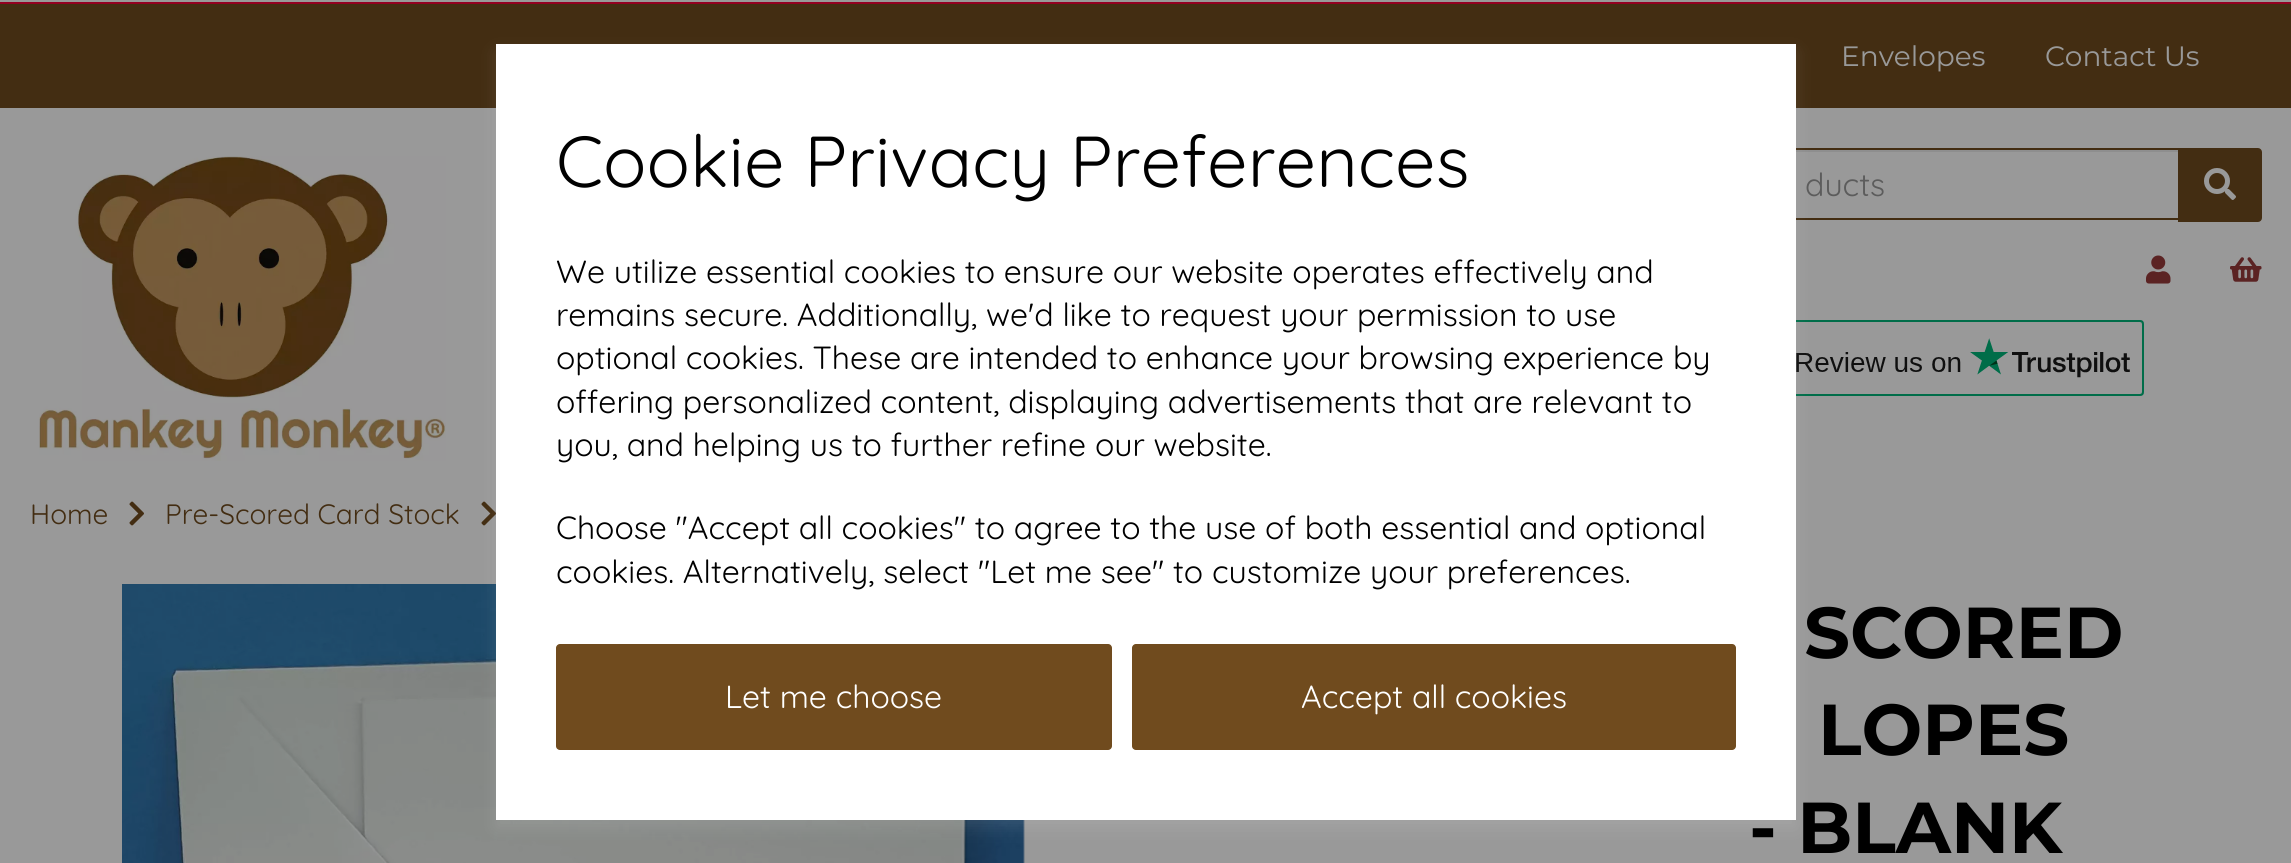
import math
import cairo

surface = cairo.ImageSurface(cairo.Format.RGB24, 2291, 863)
ctx = cairo.Context(surface)
options = cairo.FontOptions()
options.set_hint_metrics(cairo.HintMetrics.OFF)
options.set_hint_style(cairo.HintStyle.NONE)
ctx.set_font_options(options)
ctx.set_miter_limit(4)


def ink(r, g, b):
    ctx.set_source_rgb(r / 255, g / 255, b / 255)


def write(x, y, s, family, size, color, bold=False, italic=False):
    ctx.select_font_face(family, cairo.FontSlant.ITALIC if italic else cairo.FontSlant.NORMAL, cairo.FontWeight.BOLD if bold else cairo.FontWeight.NORMAL)
    ctx.set_font_size(size)
    ink(*color)
    ctx.move_to(x, y)
    ctx.show_text(s)


def block(x, y, w, h, *color):
    ink(*color)
    ctx.rectangle(x, y, w, h)
    ctx.fill()


def round_path(x, y, w, h, r):
    ctx.new_sub_path()
    for i, (u, v) in enumerate([(x + w - r, y + h - r), (x + r, y + h - r), (x + r, y + r), (x + w - r, y + r)]):
        ctx.arc(u, v, r, i * math.pi / 2, (i + 1) * math.pi / 2)
    ctx.close_path()


def blur_box(x, y, w, h, r, blur, alpha):
    ctx.push_group_with_content(cairo.Content.ALPHA)
    ctx.set_operator(cairo.Operator.SOURCE)
    for i in range(15, -16, -2):
        e = blur * i / 6
        if min(w, h) + 2 * e > 0:
            ctx.set_source_rgba(0, 0, 0, alpha * math.erfc((i - 1) / 8.5) / 2)
            round_path(x - e, y - e, w + 2 * e, h + 2 * e, max(0, min(r + e + blur * .6, min(w, h) / 2 + e)))
            ctx.fill()
    ctx.mask(ctx.pop_group())


def paste(path, x, y, w, h):
    ctx.save()
    ctx.set_source_surface(cairo.ImageSurface.create_from_png(path), x, y)
    ctx.rectangle(x, y, w, h)
    ctx.fill()
    ctx.restore()


s1 = dict(family="Montserrat", size=72, color=(0, 0, 0), bold=True)
s2 = dict(family="Quicksand", size=72, color=(0, 0, 0))
s3 = dict(family="Quicksand", size=32, color=(0, 0, 0))
s4 = dict(family="Quicksand", size=32, color=(255, 255, 255))
s5 = dict(family="Montserrat", size=28, color=(153, 153, 153))
s6 = dict(family="Quicksand", size=32, color=(92, 92, 92))
s7 = dict(family="Quicksand", size=28, color=(67, 45, 18))

ink(153, 153, 153)
ctx.paint()
block(0, 4, 2291, 104, 67, 45, 18)
ink(142, 142, 142)
ctx.new_path()
ctx.move_to(1562, 152)
ctx.line_to(2178, 152)
ctx.line_to(2178, 150)
ctx.line_to(1562, 150)
ctx.curve_to(1560, 150, 1560, 152, 1560, 153)
ctx.close_path()
ctx.fill()
ctx.rectangle(1559, 149, 620, 70)
ink(67, 45, 18)
ctx.stroke()
paste("pic5.png", 1796, 320, 348, 76)
paste("pic6.png", 481, 501, 15, 25)
paste("pic7.png", 122, 584, 903, 279)
ink(255, 255, 255)
blur_box(496, 52, 1300, 776, 0, 8, 0.1)
write(1749, 853, "- BLANK", **s1)
block(496, 44, 1300, 776, 255, 255, 255)
write(556, 187, "Cookie Privacy Preferences", **s2)
write(556, 283, "We utilize essential cookies to ensure our website operates effectively and", **s3)
write(556, 326, "remains secure. Additionally, we'd like to request your permission to use", **s3)
write(556, 369, "optional cookies. These are intended to enhance your browsing experience by", **s3)
write(556, 413, "offering personalized content, displaying advertisements that are relevant to", **s3)
write(556, 456, "you, and helping us to further refine our website.", **s3)
write(556, 539, "Choose \"Accept all cookies\" to agree to the use of both essential and optional", **s3)
write(556, 583, "cookies. Alternatively, select \"Let me see\" to customize your preferences.", **s3)
ink(112, 75, 30)
round_path(556, 644, 556, 106, 4)
ctx.fill()
write(725, 708, "Let me choose", **s4)
ink(112, 75, 30)
round_path(1132, 644, 604, 106, 4)
ctx.fill()
write(1301, 708, "Accept all cookies", **s4)
block(0, 2, 2291, 2, 148, 0, 33)
write(1841, 66, "Envelopes", **s5)
write(2045, 66, "Contact Us", **s5)
paste("pic1.png", 39, 156, 407, 305)
write(1805, 196, "ducts", **s6)
ink(67, 45, 18)
ctx.new_path()
ctx.move_to(2179, 149)
ctx.line_to(2258, 149)
ctx.curve_to(2259.5, 149, 2261, 150.5, 2261, 152)
ctx.line_to(2261, 218)
ctx.curve_to(2261, 219.5, 2259.5, 221, 2258, 221)
ctx.line_to(2179, 221)
ctx.close_path()
ctx.fill_preserve()
ctx.stroke()
paste("pic2.png", 2204, 168, 32, 32)
paste("pic3.png", 2146, 255, 25, 29)
paste("pic4.png", 2230, 257, 32, 25)
write(30, 524, "Home", **s7)
paste("pic6.png", 129, 501, 15, 25)
write(165, 524, "Pre-Scored Card Stock", **s7)
write(1804, 658, "SCORED", **s1)
write(1818, 755, "LOPES", **s1)
surface.write_to_png("screenshot.png")
